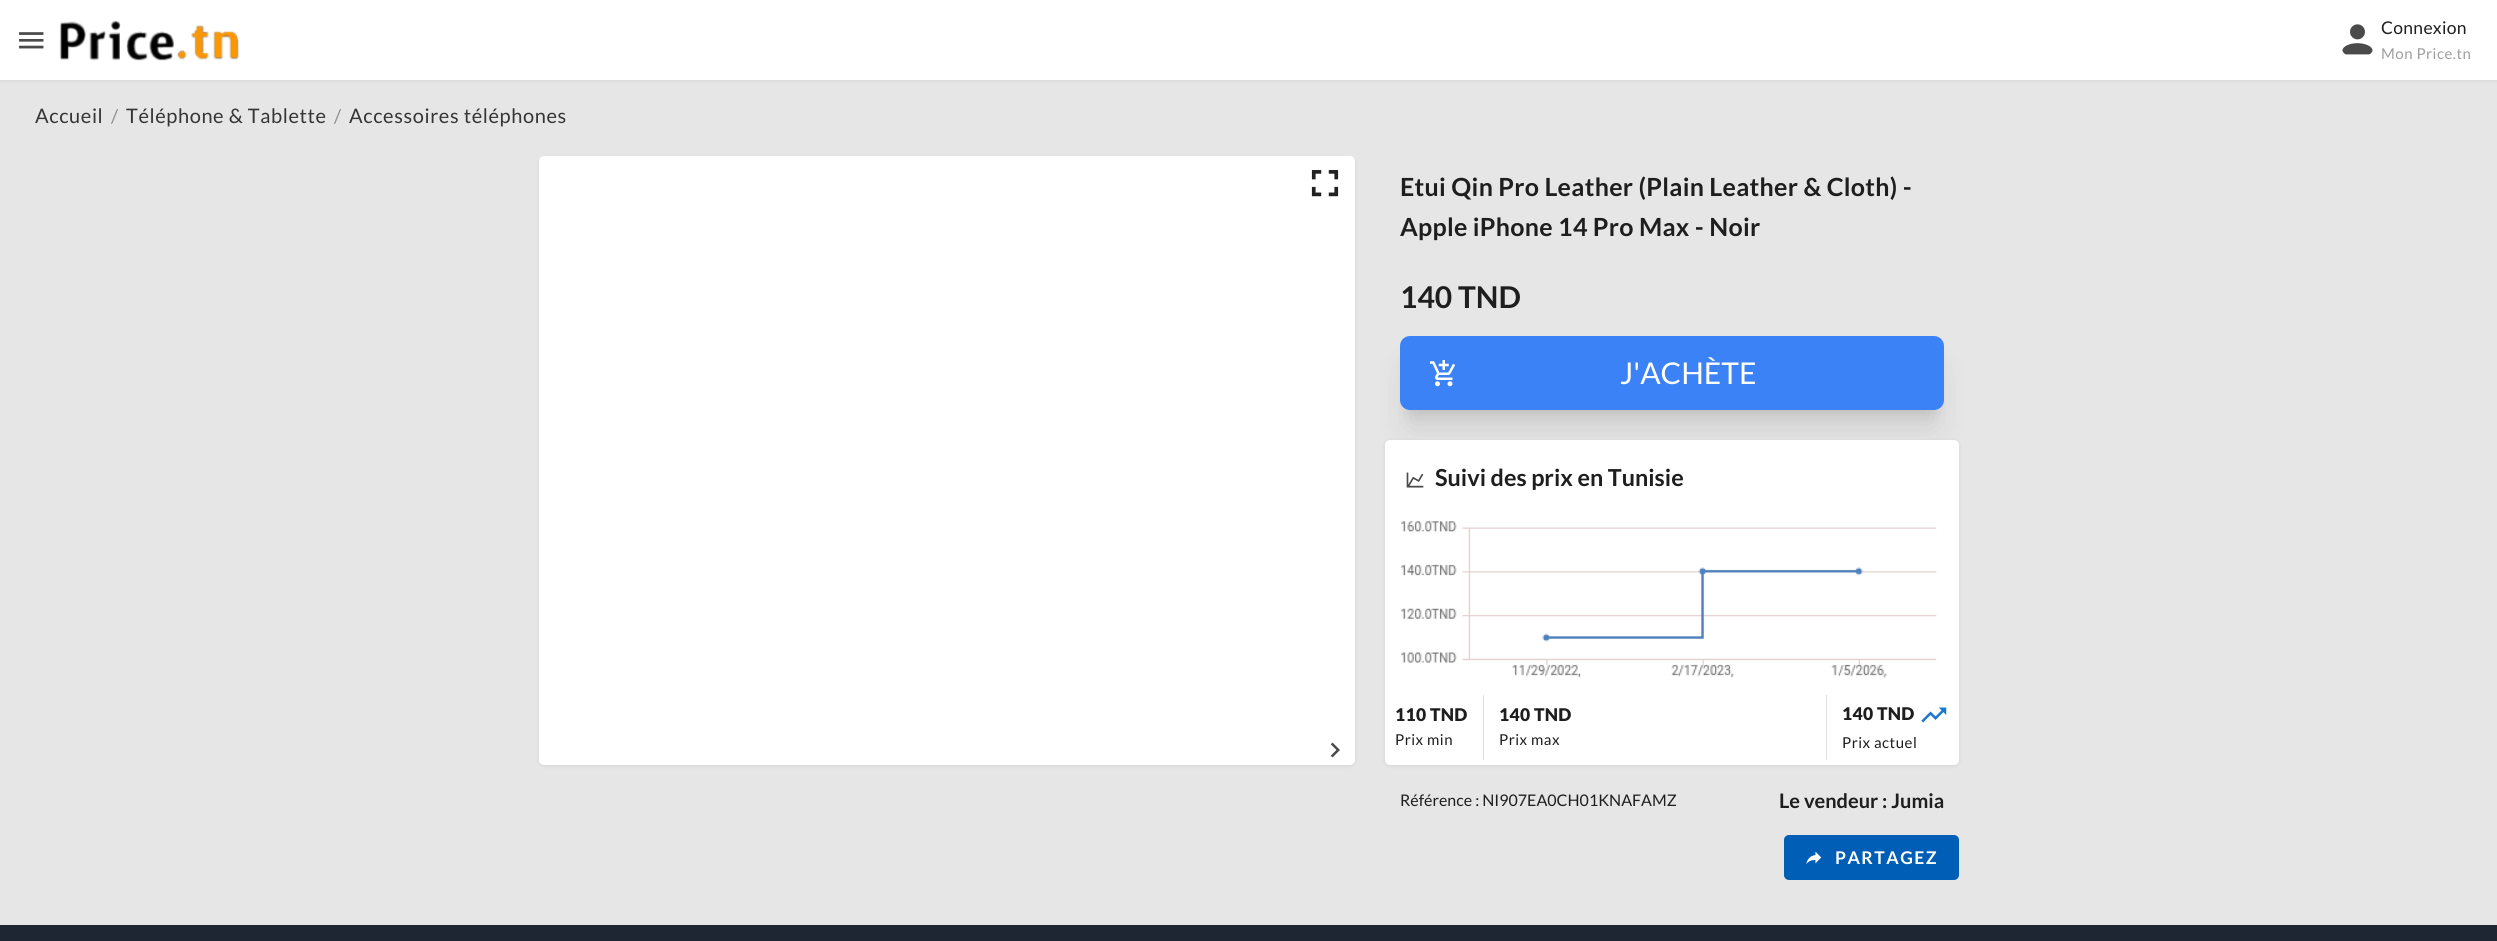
import math
import cairo

surface = cairo.ImageSurface(cairo.Format.RGB24, 2497, 941)
ctx = cairo.Context(surface)
options = cairo.FontOptions()
options.set_hint_metrics(cairo.HintMetrics.OFF)
options.set_hint_style(cairo.HintStyle.NONE)
ctx.set_font_options(options)
ctx.set_miter_limit(4)


def ink(r, g, b):
    ctx.set_source_rgb(r / 255, g / 255, b / 255)


def write(x, y, s, family, size, color, bold=False, italic=False):
    ctx.select_font_face(family, cairo.FontSlant.ITALIC if italic else cairo.FontSlant.NORMAL, cairo.FontWeight.BOLD if bold else cairo.FontWeight.NORMAL)
    ctx.set_font_size(size)
    ink(*color)
    ctx.move_to(x, y)
    ctx.show_text(s)


def write_spaced(x, y, s, letter, word):
    ctx.move_to(x, y)
    for ch in s:
        ctx.show_text(ch)
        ctx.rel_move_to(letter + word * (ch == ' '), 0)


def block(x, y, w, h, *color):
    ink(*color)
    ctx.rectangle(x, y, w, h)
    ctx.fill()


def round_path(x, y, w, h, r):
    ctx.new_sub_path()
    for i, (u, v) in enumerate([(x + w - r, y + h - r), (x + r, y + h - r), (x + r, y + r), (x + w - r, y + r)]):
        ctx.arc(u, v, r, i * math.pi / 2, (i + 1) * math.pi / 2)
    ctx.close_path()


def blur_box(x, y, w, h, r, blur, alpha):
    ctx.push_group_with_content(cairo.Content.ALPHA)
    ctx.set_operator(cairo.Operator.SOURCE)
    for i in range(15, -16, -2):
        e = blur * i / 6
        if min(w, h) + 2 * e > 0:
            ctx.set_source_rgba(0, 0, 0, alpha * math.erfc((i - 1) / 8.5) / 2)
            round_path(x - e, y - e, w + 2 * e, h + 2 * e, max(0, min(r + e + blur * .6, min(w, h) / 2 + e)))
            ctx.fill()
    ctx.mask(ctx.pop_group())


def paste(path, x, y, w, h):
    ctx.save()
    ctx.set_source_surface(cairo.ImageSurface.create_from_png(path), x, y)
    ctx.rectangle(x, y, w, h)
    ctx.fill()
    ctx.restore()


s1 = dict(family="Lato", size=30, color=(30, 30, 30), bold=True)
s2 = dict(family="Lato", size=30, color=(255, 255, 255))
s3 = dict(family="Lato", size=23.4, color=(30, 30, 30), bold=True)
s4 = dict(family="Lato", size=16, color=(30, 30, 30))
s5 = dict(family="Lato", size=20, color=(30, 30, 30), bold=True)

ink(230, 230, 230)
ctx.paint()
ink(0, 0, 0)
blur_box(0, 1, 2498, 80, 0, 2, 0.08)
block(0, 0, 2497, 80, 255, 255, 255)
paste("pic1.png", 19, 32, 25, 17)
paste("pic2.png", 59, 20, 180, 41)
paste("pic3.png", 2342, 24, 31, 31)
ctx.select_font_face("Lato")
ctx.set_font_size(17.5)
ink(30, 30, 30)
write_spaced(2381, 34, "Connexion", 0.3, 0)
ctx.set_font_size(15)
ink(158, 158, 158)
write_spaced(2381, 59, "Mon Price.tn", 0.5, 0)
ctx.set_font_size(20)
ink(53, 53, 53)
write_spaced(35, 123, "Accueil", 0.6, 0)
ctx.set_font_size(19)
ink(143, 143, 143)
write_spaced(111, 123, "/", 0.3, 0)
ctx.set_font_size(20)
ink(53, 53, 53)
write_spaced(126, 123, "Téléphone & Tablette", 0.6, 0)
ctx.set_font_size(19)
ink(143, 143, 143)
write_spaced(334, 123, "/", 0.3, 0)
ctx.set_font_size(20)
ink(53, 53, 53)
write_spaced(349, 123, "Accessoires téléphones", 0.6, 0)
ink(0, 0, 0)
blur_box(539, 158, 816, 608, 5, 2, 0.08)
ink(255, 255, 255)
round_path(539, 156, 816, 609, 5)
ctx.fill()
paste("pic4.png", 1311, 170, 28, 27)
paste("pic5.png", 1330, 742, 10, 16)
ctx.select_font_face("Lato", cairo.FontSlant.NORMAL, cairo.FontWeight.BOLD)
ctx.set_font_size(25)
ink(30, 30, 30)
write_spaced(1400, 196, "Etui Qin Pro Leather (Plain Leather & Cloth) -", 0.3, 0)
write_spaced(1400, 236, "Apple iPhone 14 Pro Max - Noir", 0.3, 0)
write(1400, 308, "140 TND", **s1)
ink(0, 0, 0)
blur_box(1408, 354, 528, 59, 2.5, 6, 0.1)
blur_box(1406, 368, 532, 61, 4, 15.5, 0.1)
ink(59, 130, 246)
round_path(1400, 336, 544, 74, 10)
ctx.fill()
paste("pic6.png", 1430, 360, 26, 27)
write(1620, 384, "J'ACHÈTE", **s2)
ink(0, 0, 0)
blur_box(1385, 441, 574, 325, 5, 2, 0.08)
ink(255, 255, 255)
round_path(1385, 440, 574, 325, 5)
ctx.fill()
paste("pic7.png", 1406, 472, 18, 16)
write(1435, 486, "Suivi des prix en Tunisie", **s3)
paste("pic8.png", 1401, 521, 536, 157)
ctx.select_font_face("Lato Black")
ctx.set_font_size(17.5)
write_spaced(1395, 721, "110 TND", 0.3, 0)
ctx.select_font_face("Lato")
ctx.set_font_size(15)
write_spaced(1395, 745, "Prix min", 0.5, 0)
block(1483, 695, 1, 65, 224, 224, 224)
ctx.select_font_face("Lato Black")
ctx.set_font_size(17.5)
ink(30, 30, 30)
write_spaced(1499, 721, "140 TND", 0.3, 0)
ctx.select_font_face("Lato")
ctx.set_font_size(15)
write_spaced(1499, 745, "Prix max", 0.5, 0)
block(1826, 695, 1, 65, 224, 224, 224)
ctx.select_font_face("Lato Black")
ctx.set_font_size(17.5)
ink(30, 30, 30)
write_spaced(1842, 720, "140 TND", 0.3, 0)
paste("pic9.png", 1921, 707, 26, 16)
ctx.select_font_face("Lato")
ctx.set_font_size(15)
write_spaced(1842, 748, "Prix actuel", 0.5, 0)
write(1400, 806, "Référence : NI907EA0CH01KNAFAMZ", **s4)
write(1779, 808, "Le vendeur : Jumia", **s5)
ink(0, 94, 182)
round_path(1784, 835, 175, 45, 5)
ctx.fill()
paste("pic10.png", 1806, 851, 16, 13)
ctx.set_font_size(17.5)
ink(255, 255, 255)
write_spaced(1835, 864, "PARTAGEZ", 1.5, 0)
block(0, 925, 2497, 16, 29, 38, 50)
surface.write_to_png("screenshot.png")
